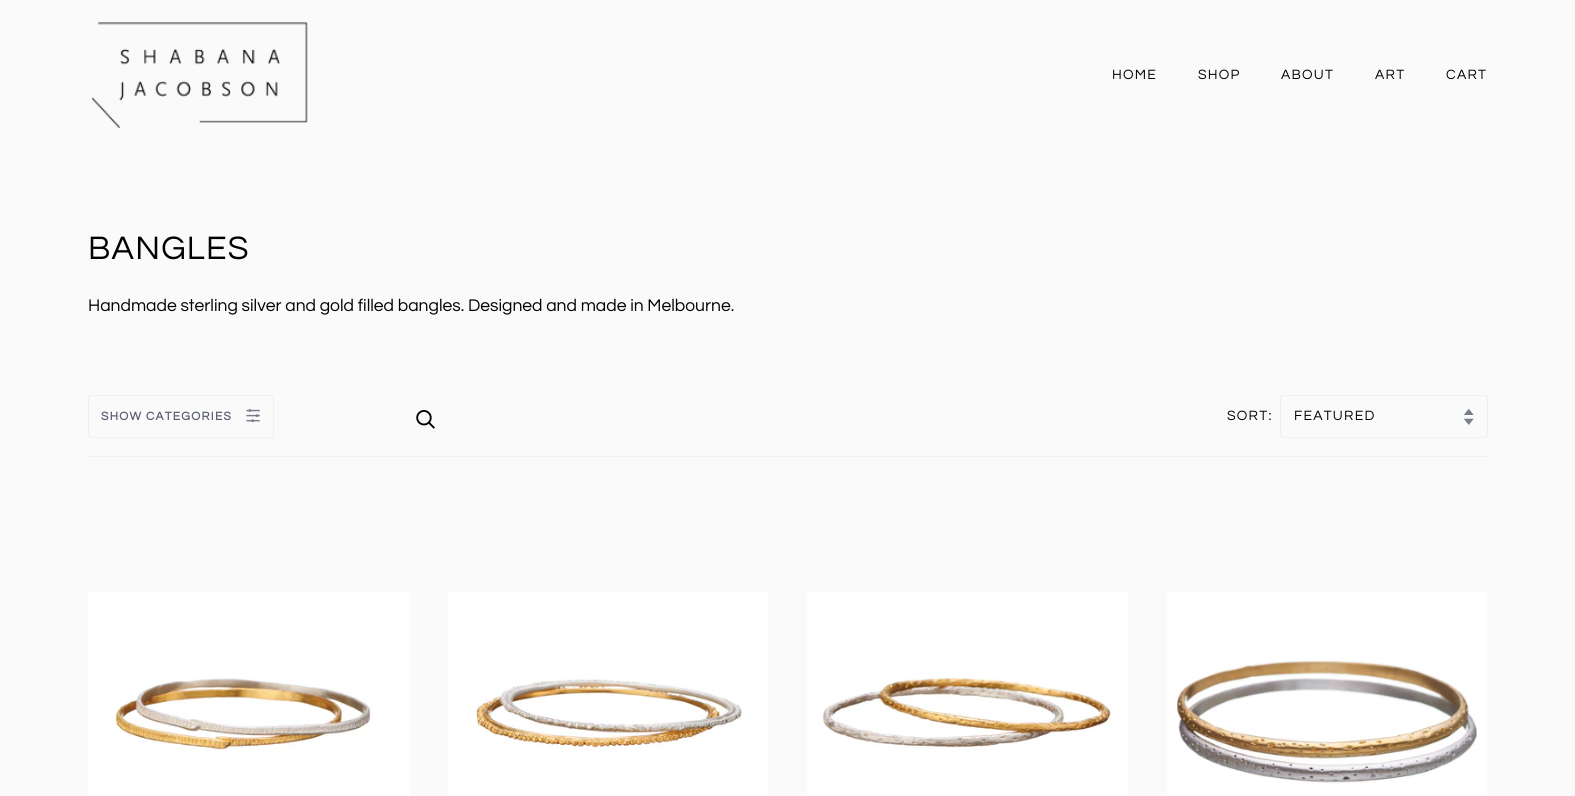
import math
import cairo

surface = cairo.ImageSurface(cairo.Format.RGB24, 1575, 796)
ctx = cairo.Context(surface)
options = cairo.FontOptions()
options.set_hint_metrics(cairo.HintMetrics.OFF)
options.set_hint_style(cairo.HintStyle.NONE)
ctx.set_font_options(options)
ctx.set_miter_limit(4)


def ink(r, g, b):
    ctx.set_source_rgb(r / 255, g / 255, b / 255)


def write(x, y, s, family, size, color, bold=False, italic=False):
    ctx.select_font_face(family, cairo.FontSlant.ITALIC if italic else cairo.FontSlant.NORMAL, cairo.FontWeight.BOLD if bold else cairo.FontWeight.NORMAL)
    ctx.set_font_size(size)
    ink(*color)
    ctx.move_to(x, y)
    ctx.show_text(s)


def write_spaced(x, y, s, letter, word):
    ctx.move_to(x, y)
    for ch in s:
        ctx.show_text(ch)
        ctx.rel_move_to(letter + word * (ch == ' '), 0)


def block(x, y, w, h, *color):
    ink(*color)
    ctx.rectangle(x, y, w, h)
    ctx.fill()


def round_path(x, y, w, h, r):
    ctx.new_sub_path()
    for i, (u, v) in enumerate([(x + w - r, y + h - r), (x + r, y + h - r), (x + r, y + r), (x + w - r, y + r)]):
        ctx.arc(u, v, r, i * math.pi / 2, (i + 1) * math.pi / 2)
    ctx.close_path()


def paste(path, x, y, w, h):
    ctx.save()
    ctx.set_source_surface(cairo.ImageSurface.create_from_png(path), x, y)
    ctx.rectangle(x, y, w, h)
    ctx.fill()
    ctx.restore()


s1 = dict(family="Questrial", size=17.5, color=(0, 0, 0))

ink(250, 250, 250)
ctx.paint()
paste("pic1.png", 91, 22, 217, 107)
ctx.select_font_face("Questrial")
ctx.set_font_size(14)
ink(0, 0, 0)
write_spaced(1112, 79, "HOME", 1.25, 0)
write_spaced(1198, 79, "SHOP", 1.25, 0)
write_spaced(1281, 79, "ABOUT", 1.25, 0)
write_spaced(1375, 79, "ART", 1.25, 0)
write_spaced(1446, 79, "CART", 1.25, 0)
ctx.set_font_size(33.75)
write_spaced(88, 259, "BANGLES", 1.25, 0)
write(88, 311, "Handmade sterling silver and gold filled bangles. Designed and made in Melbourne.", **s1)
round_path(88.5, 395.5, 185, 42, 2)
ink(240, 240, 240)
ctx.set_line_width(1)
ctx.stroke()
ctx.select_font_face("Questrial", cairo.FontSlant.NORMAL, cairo.FontWeight.BOLD)
ctx.set_font_size(12)
ink(88, 94, 113)
write_spaced(101, 420, "SHOW CATEGORIES", 1.25, 0)
paste("pic2.png", 246, 409, 14, 14)
paste("pic3.png", 416, 410, 19, 19)
ctx.select_font_face("Questrial")
ctx.set_font_size(14)
ink(0, 0, 0)
write_spaced(1227, 420, "SORT:", 1.25, 0)
paste("pic4.png", 1464, 409, 10, 16)
round_path(1280.5, 395.5, 207, 42, 2)
ink(240, 240, 240)
ctx.stroke()
ink(0, 0, 0)
write_spaced(1294, 420, "FEATURED", 1.25, 0)
block(88, 456, 1400, 1, 240, 240, 240)
paste("pic5.png", 88, 592, 322, 204)
paste("pic6.png", 448, 592, 320, 204)
paste("pic7.png", 807, 592, 321, 204)
paste("pic8.png", 1167, 592, 320, 204)
surface.write_to_png("screenshot.png")
